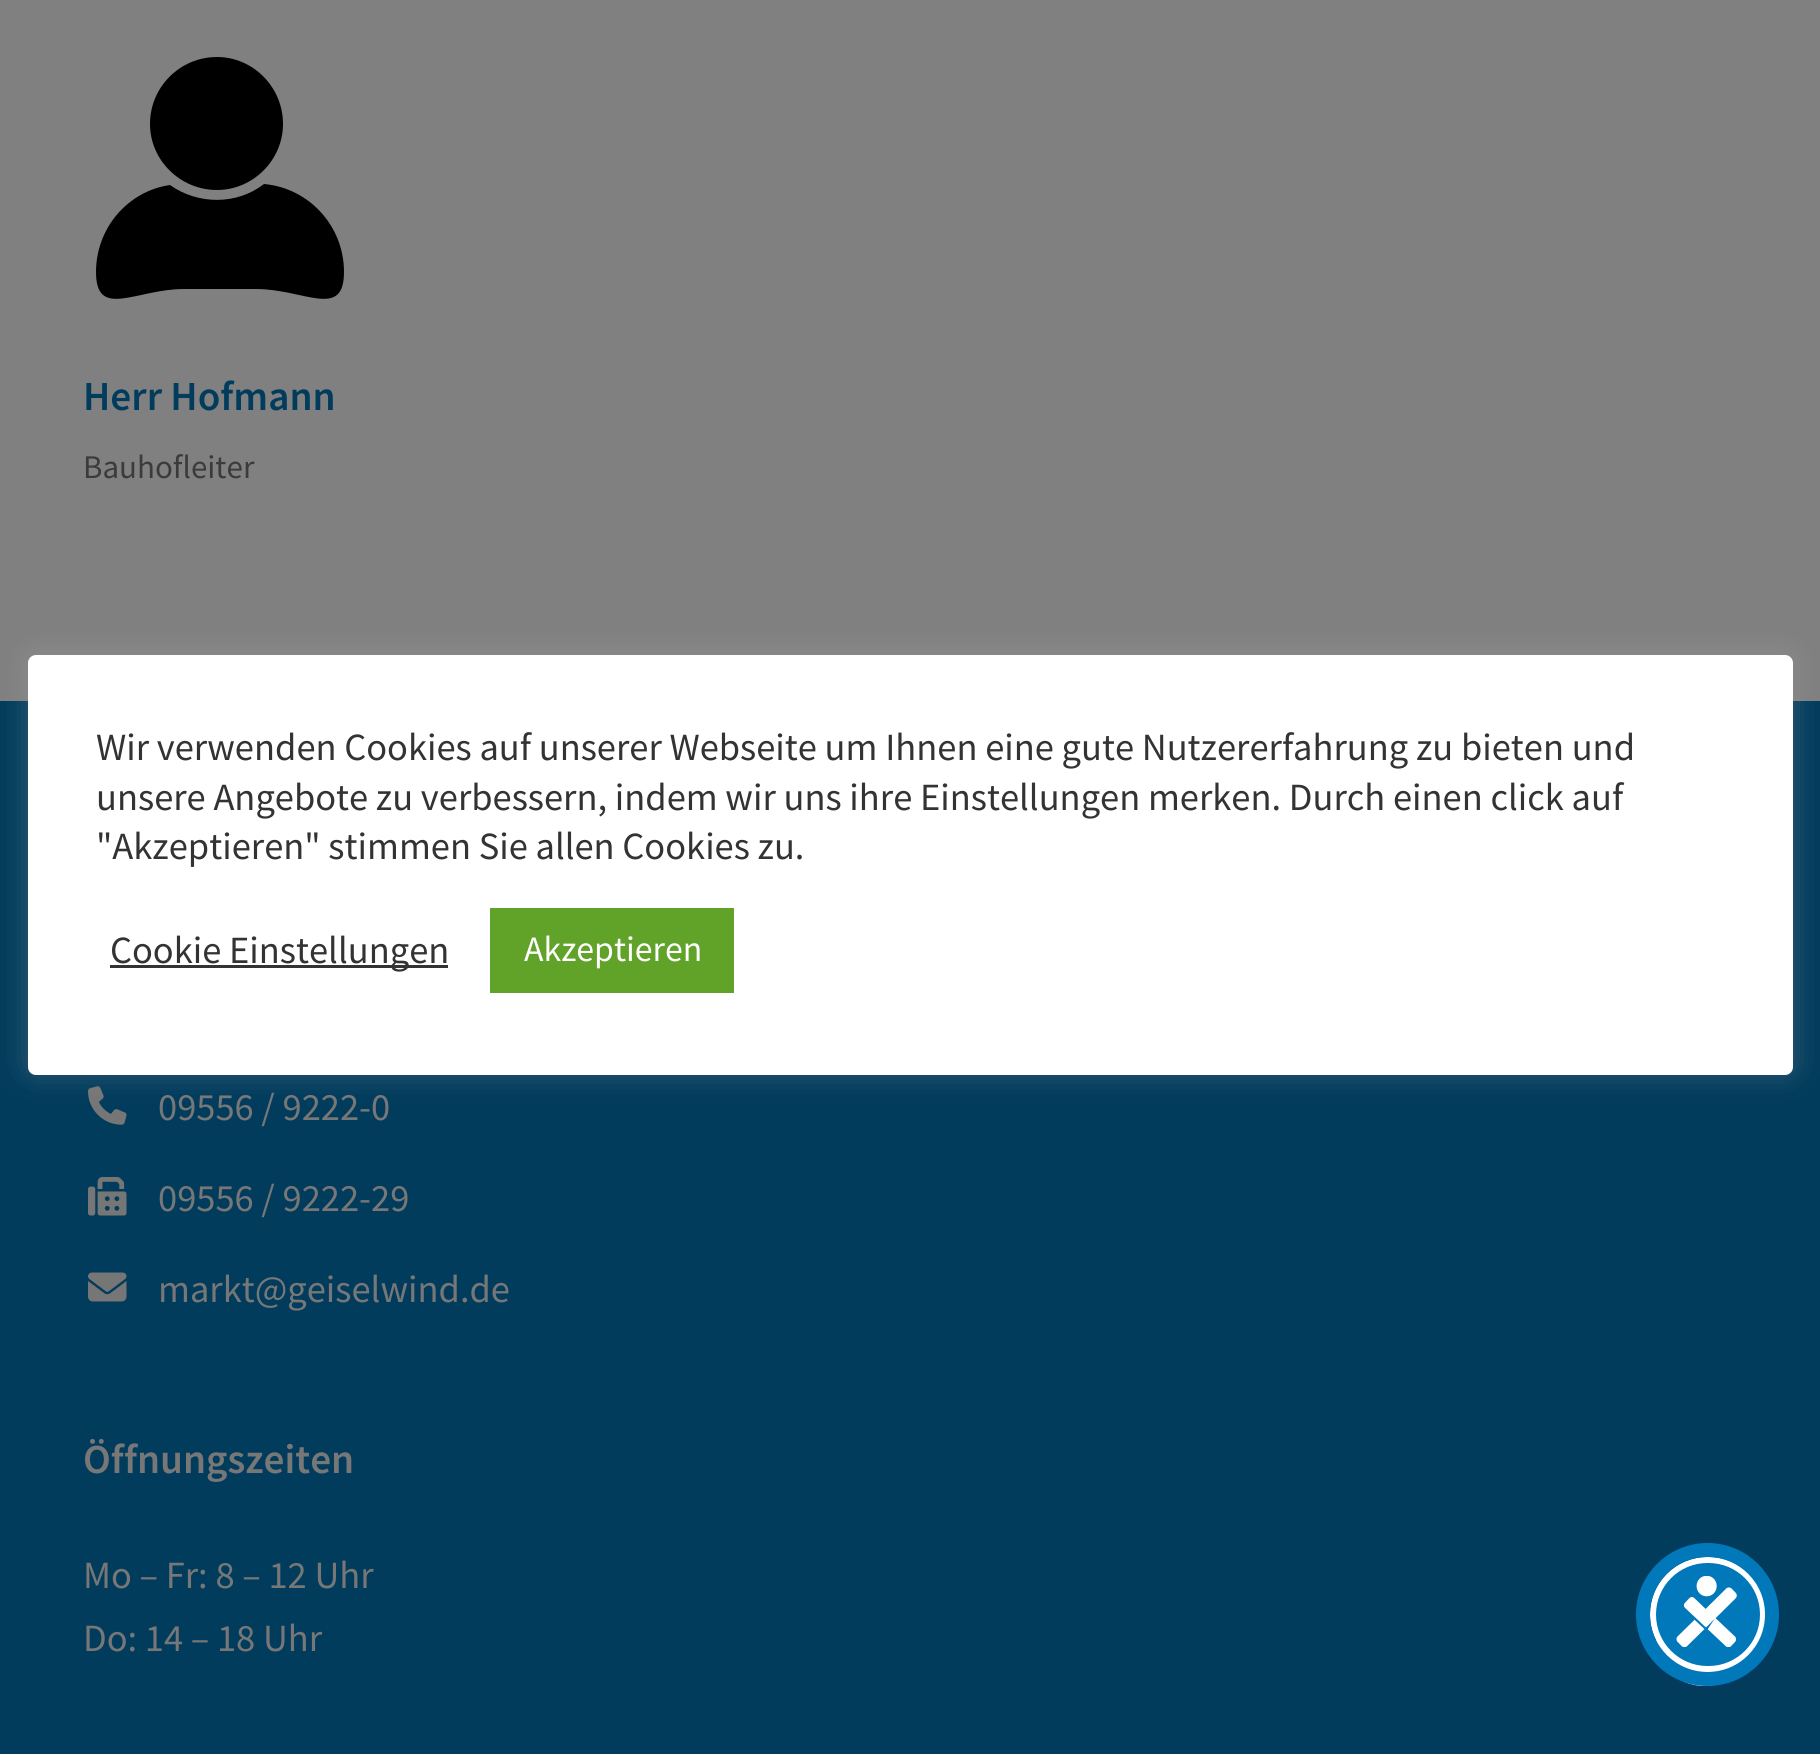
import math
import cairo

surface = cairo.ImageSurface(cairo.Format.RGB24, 1820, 1754)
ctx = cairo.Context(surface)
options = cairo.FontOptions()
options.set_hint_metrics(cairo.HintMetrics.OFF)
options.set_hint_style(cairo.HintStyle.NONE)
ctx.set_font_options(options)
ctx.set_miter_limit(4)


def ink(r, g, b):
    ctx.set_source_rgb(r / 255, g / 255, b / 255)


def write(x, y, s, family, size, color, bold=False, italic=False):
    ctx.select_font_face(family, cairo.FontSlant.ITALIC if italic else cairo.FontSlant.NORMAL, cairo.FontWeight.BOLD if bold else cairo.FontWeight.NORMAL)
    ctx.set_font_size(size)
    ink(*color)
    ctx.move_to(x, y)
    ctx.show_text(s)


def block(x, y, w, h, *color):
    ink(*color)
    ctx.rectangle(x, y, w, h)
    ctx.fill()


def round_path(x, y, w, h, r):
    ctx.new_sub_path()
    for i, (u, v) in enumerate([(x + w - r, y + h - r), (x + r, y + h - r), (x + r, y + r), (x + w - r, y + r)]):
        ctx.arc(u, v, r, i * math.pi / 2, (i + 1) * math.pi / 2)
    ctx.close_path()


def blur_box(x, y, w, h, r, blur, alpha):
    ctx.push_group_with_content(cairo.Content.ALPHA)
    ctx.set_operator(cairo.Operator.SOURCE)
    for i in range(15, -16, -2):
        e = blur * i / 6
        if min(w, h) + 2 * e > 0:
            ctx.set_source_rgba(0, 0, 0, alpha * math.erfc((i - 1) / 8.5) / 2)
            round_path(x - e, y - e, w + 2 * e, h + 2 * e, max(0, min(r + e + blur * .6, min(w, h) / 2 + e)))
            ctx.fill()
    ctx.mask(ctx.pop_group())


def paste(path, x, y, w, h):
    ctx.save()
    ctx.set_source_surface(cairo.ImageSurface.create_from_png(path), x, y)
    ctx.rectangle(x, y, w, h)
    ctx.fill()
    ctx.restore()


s1 = dict(family="Source Sans Pro SemiBold", size=41.25, color=(1, 60, 93))
s2 = dict(family="Source Sans Pro", size=33, color=(59, 59, 59))
s3 = dict(family="Source Sans Pro", size=38.5, color=(119, 119, 119))
s4 = dict(family="Source Sans Pro SemiBold", size=41.25, color=(119, 119, 119))
s5 = dict(family="Source Sans Pro", size=38.5, color=(51, 51, 51))
s6 = dict(family="Source Sans Pro", size=35.75, color=(255, 255, 255))

ink(128, 128, 128)
ctx.paint()
ink(0, 0, 0)
ctx.new_path()
ctx.move_to(264, 184)
ctx.curve_to(237, 205, 198, 205, 170, 185)
ctx.curve_to(128, 191, 96, 228, 96, 272)
ctx.curve_to(96, 320, 136, 289, 184, 289)
ctx.line_to(256, 289)
ctx.curve_to(304, 289, 344, 320, 344, 272)
ctx.curve_to(344, 226, 309, 188, 264, 184)
ctx.close_path()
ctx.fill()
ctx.new_path()
ctx.move_to(217, 190)
ctx.curve_to(253, 190, 283, 160, 283, 124)
ctx.curve_to(283, 87, 253, 57, 217, 57)
ctx.curve_to(180, 57, 150, 87, 150, 124)
ctx.curve_to(150, 160, 180, 190, 217, 190)
ctx.close_path()
ctx.fill()
write(83, 410, "Herr Hofmann", **s1)
write(83, 478, "Bauhofleiter", **s2)
block(0, 701, 1820, 1053, 1, 60, 93)
paste("pic1.png", 88, 1086, 39, 39)
write(158, 1120, "09556 / 9222-0", **s3)
paste("pic2.png", 88, 1177, 39, 39)
write(158, 1211, "09556 / 9222-29", **s3)
paste("pic3.png", 88, 1272, 39, 30)
write(158, 1302, "markt@geiselwind.de", **s3)
write(83, 1473, "Öffnungszeiten", **s4)
write(83, 1588, "Mo – Fr: 8 – 12 Uhr", **s3)
write(83, 1651, "Do: 14 – 18 Uhr", **s3)
ink(172, 171, 171)
blur_box(28, 652, 1765, 421, 8, 14, 0.3)
ink(255, 255, 255)
round_path(28, 655, 1765, 420, 8)
ctx.fill()
write(96, 760, "Wir verwenden Cookies auf unserer Webseite um Ihnen eine gute Nutzererfahrung zu bieten und", **s5)
write(96, 810, "unsere Angebote zu verbessern, indem wir uns ihre Einstellungen merken. Durch einen click auf", **s5)
write(96, 859, "\"Akzeptieren\" stimmen Sie allen Cookies zu.", **s5)
block(110, 965, 338, 3, 51, 51, 51)
write(110, 963, "Cookie Einstellungen", **s5)
block(490, 908, 244, 85, 97, 162, 41)
write(524, 961, "Akzeptieren", **s6)
ink(247, 247, 247)
ctx.new_path()
ctx.arc(1704, 1638, 48, 0, 2 * math.pi)
ctx.fill()
ink(93, 100, 148)
blur_box(1650, 1562, 116, 116, 58, 5.5, 0.2)
ink(37, 44, 97)
blur_box(1650, 1570, 116, 116, 58, 20.5, 0.15)
ink(1, 120, 186)
round_path(1653, 1560, 110, 109, 54.5)
ctx.fill_preserve()
ink(255, 255, 255)
ctx.set_line_width(6)
ctx.stroke()
ctx.arc(1707.5, 1614.5, 64.5, 0, 2 * math.pi)
ink(1, 120, 186)
ctx.set_line_width(14)
ctx.stroke()
paste("pic4.png", 1676, 1576, 61, 71)
surface.write_to_png("screenshot.png")
